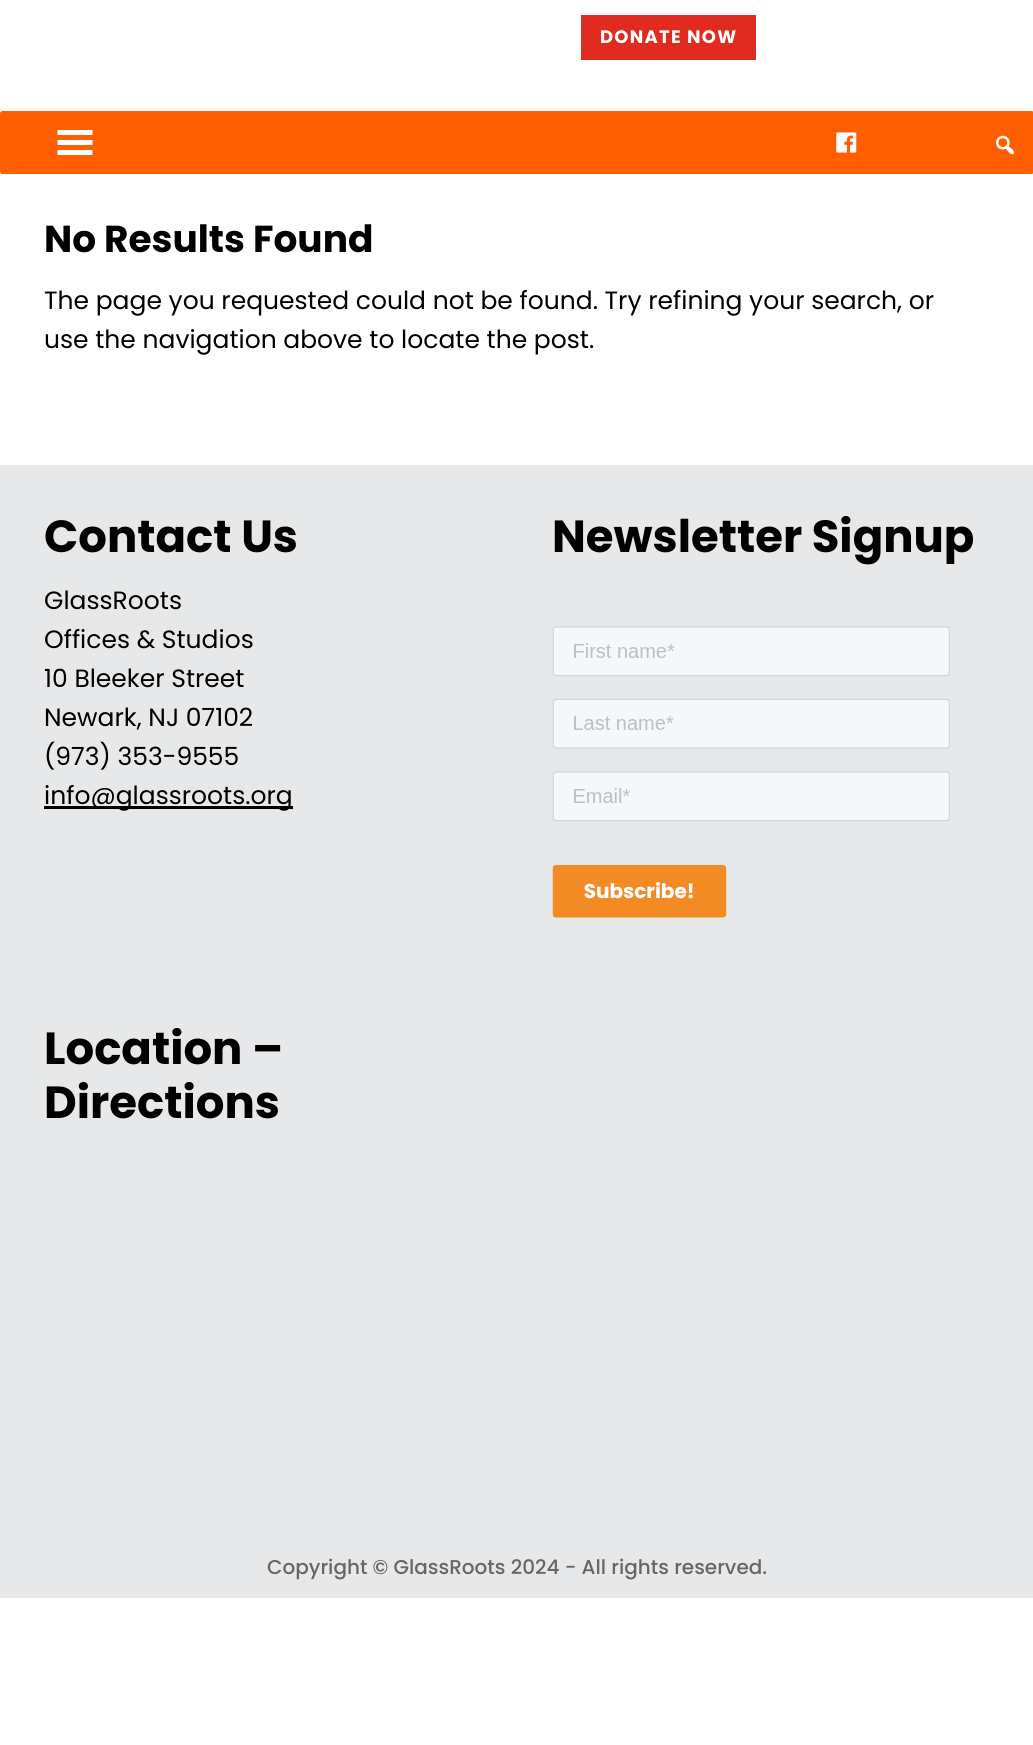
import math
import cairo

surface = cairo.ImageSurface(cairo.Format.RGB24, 1033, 1745)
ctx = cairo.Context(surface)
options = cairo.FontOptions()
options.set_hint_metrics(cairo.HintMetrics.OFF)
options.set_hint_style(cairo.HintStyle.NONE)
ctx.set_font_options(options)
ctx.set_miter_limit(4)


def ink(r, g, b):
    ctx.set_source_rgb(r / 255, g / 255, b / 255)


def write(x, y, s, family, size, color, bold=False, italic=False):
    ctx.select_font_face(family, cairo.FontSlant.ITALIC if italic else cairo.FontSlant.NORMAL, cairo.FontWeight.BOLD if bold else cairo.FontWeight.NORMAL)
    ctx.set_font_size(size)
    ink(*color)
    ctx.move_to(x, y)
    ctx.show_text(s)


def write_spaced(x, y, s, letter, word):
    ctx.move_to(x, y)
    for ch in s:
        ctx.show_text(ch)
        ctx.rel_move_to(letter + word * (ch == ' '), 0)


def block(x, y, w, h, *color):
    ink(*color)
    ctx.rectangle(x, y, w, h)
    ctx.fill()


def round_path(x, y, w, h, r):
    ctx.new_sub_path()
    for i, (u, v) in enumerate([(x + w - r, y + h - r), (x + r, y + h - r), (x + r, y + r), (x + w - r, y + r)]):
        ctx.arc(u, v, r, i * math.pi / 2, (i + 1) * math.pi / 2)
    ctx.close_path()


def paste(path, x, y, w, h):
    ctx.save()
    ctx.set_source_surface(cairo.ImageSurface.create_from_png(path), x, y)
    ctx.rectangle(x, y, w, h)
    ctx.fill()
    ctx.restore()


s1 = dict(family="Poppins", size=37.5, color=(0, 0, 0), bold=True)
s2 = dict(family="Poppins", size=25, color=(0, 0, 0))
s3 = dict(family="Poppins", size=45, color=(0, 0, 0), bold=True)
s4 = dict(family="Poppins Medium", size=20, color=(102, 102, 102))

ink(255, 255, 255)
ctx.paint()
block(581, 15, 175, 45, 224, 43, 32)
ctx.select_font_face("Poppins", cairo.FontSlant.NORMAL, cairo.FontWeight.BOLD)
ctx.set_font_size(18)
ink(255, 255, 255)
write_spaced(600, 43, "DONATE NOW", 1.25, 0)
ink(255, 95, 0)
round_path(0, 111, 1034, 63, 2.5)
ctx.fill()
ink(255, 255, 255)
ctx.new_path()
ctx.move_to(57.5, 155)
ctx.line_to(92.5, 155)
ctx.line_to(92.5, 150)
ctx.line_to(57.5, 150)
ctx.close_path()
ctx.move_to(57.5, 130)
ctx.line_to(57.5, 135)
ctx.line_to(92.5, 135)
ctx.line_to(92.5, 130)
ctx.close_path()
ctx.move_to(57.5, 145)
ctx.line_to(92.5, 145)
ctx.line_to(92.5, 140)
ctx.line_to(57.5, 140)
ctx.close_path()
ctx.fill()
paste("pic1.png", 836, 132, 21, 21)
paste("pic2.png", 996, 135, 18, 20)
write(44, 252, "No Results Found", **s1)
write(44, 309, "The page you requested could not be found. Try refining your search, or", **s2)
write(44, 348, "use the navigation above to locate the post.", **s2)
block(0, 465, 1033, 1133, 231, 232, 233)
write(44, 552, "Contact Us", **s3)
write(44, 609, "GlassRoots", **s2)
write(44, 648, "Offices & Studios", **s2)
write(44, 687, "10 Bleeker Street", **s2)
write(44, 726, "Newark, NJ 07102", **s2)
write(44, 765, "(973) 353-9555", **s2)
block(44, 806, 249, 3, 0, 0, 0)
write(44, 804, "info@glassroots.org", **s2)
write(552, 552, "Newsletter Signup", **s3)
paste("pic3.png", 552, 626, 398, 292)
write(44, 1064, "Location –", **s3)
write(44, 1118, "Directions", **s3)
write(267, 1574, "Copyright © GlassRoots 2024 - All rights reserved.", **s4)
surface.write_to_png("screenshot.png")
